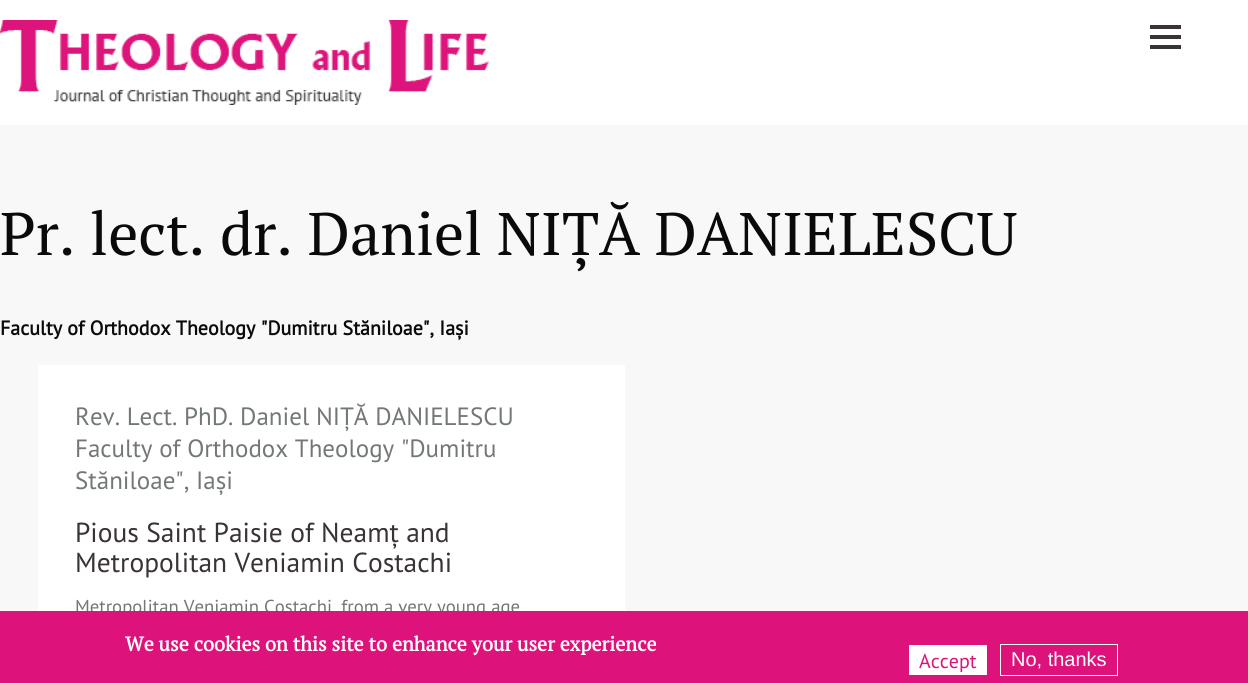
import math
import cairo

surface = cairo.ImageSurface(cairo.Format.RGB24, 1248, 683)
ctx = cairo.Context(surface)
options = cairo.FontOptions()
options.set_hint_metrics(cairo.HintMetrics.OFF)
options.set_hint_style(cairo.HintStyle.NONE)
ctx.set_font_options(options)
ctx.set_miter_limit(4)


def ink(r, g, b):
    ctx.set_source_rgb(r / 255, g / 255, b / 255)


def write(x, y, s, family, size, color, bold=False, italic=False):
    ctx.select_font_face(family, cairo.FontSlant.ITALIC if italic else cairo.FontSlant.NORMAL, cairo.FontWeight.BOLD if bold else cairo.FontWeight.NORMAL)
    ctx.set_font_size(size)
    ink(*color)
    ctx.move_to(x, y)
    ctx.show_text(s)


def block(x, y, w, h, *color):
    ink(*color)
    ctx.rectangle(x, y, w, h)
    ctx.fill()


def paste(path, x, y, w, h):
    ctx.save()
    ctx.set_source_surface(cairo.ImageSurface.create_from_png(path), x, y)
    ctx.rectangle(x, y, w, h)
    ctx.fill()
    ctx.restore()


s1 = dict(family="PT Serif", size=60, color=(10, 10, 10))
s2 = dict(family="PT Sans", size=20, color=(10, 10, 10), bold=True)
s3 = dict(family="PT Sans", size=25, color=(114, 119, 120))
s4 = dict(family="PT Sans", size=27.5, color=(58, 51, 53))
s5 = dict(family="PT Sans", size=18.75, color=(114, 119, 120))
s6 = dict(family="PT Serif", size=20, color=(255, 255, 255), bold=True)
s7 = dict(family="PT Sans", size=20, color=(221, 18, 123))
s8 = dict(family="Liberation Sans", size=20, color=(255, 255, 255))

ink(248, 248, 248)
ctx.paint()
block(0, 0, 1248, 125, 255, 255, 255)
paste("pic1.png", 0, 20, 489, 85)
block(1150, 45, 31, 4, 58, 51, 53)
block(1150, 35, 31, 4, 58, 51, 53)
block(1150, 25, 31, 4, 58, 51, 53)
write(0, 255, "Pr. lect. dr. Daniel NIȚĂ DANIELESCU", **s1)
write(0, 335, "Faculty of Orthodox Theology \"Dumitru Stăniloae\", Iași", **s2)
block(38, 365, 587, 246, 255, 255, 255)
write(75, 425, "Rev. Lect. PhD. Daniel NIȚĂ DANIELESCU", **s3)
write(75, 457, "Faculty of Orthodox Theology \"Dumitru", **s3)
write(75, 489, "Stăniloae\", Iași", **s3)
write(75, 542, "Pious Saint Paisie of Neamț and", **s4)
write(75, 572, "Metropolitan Veniamin Costachi", **s4)
write(75, 613, "Metropolitan Veniamin Costachi, from a very young age", **s5)
block(0, 611, 1248, 72, 221, 18, 123)
write(125, 651, "We use cookies on this site to enhance your user experience", **s6)
block(909, 645, 78, 30, 255, 255, 255)
write(919, 668, "Accept", **s7)
ctx.rectangle(1000.5, 644.5, 117, 31)
ink(255, 255, 255)
ctx.set_line_width(1)
ctx.stroke()
write(1011, 666, "No, thanks", **s8)
surface.write_to_png("screenshot.png")
